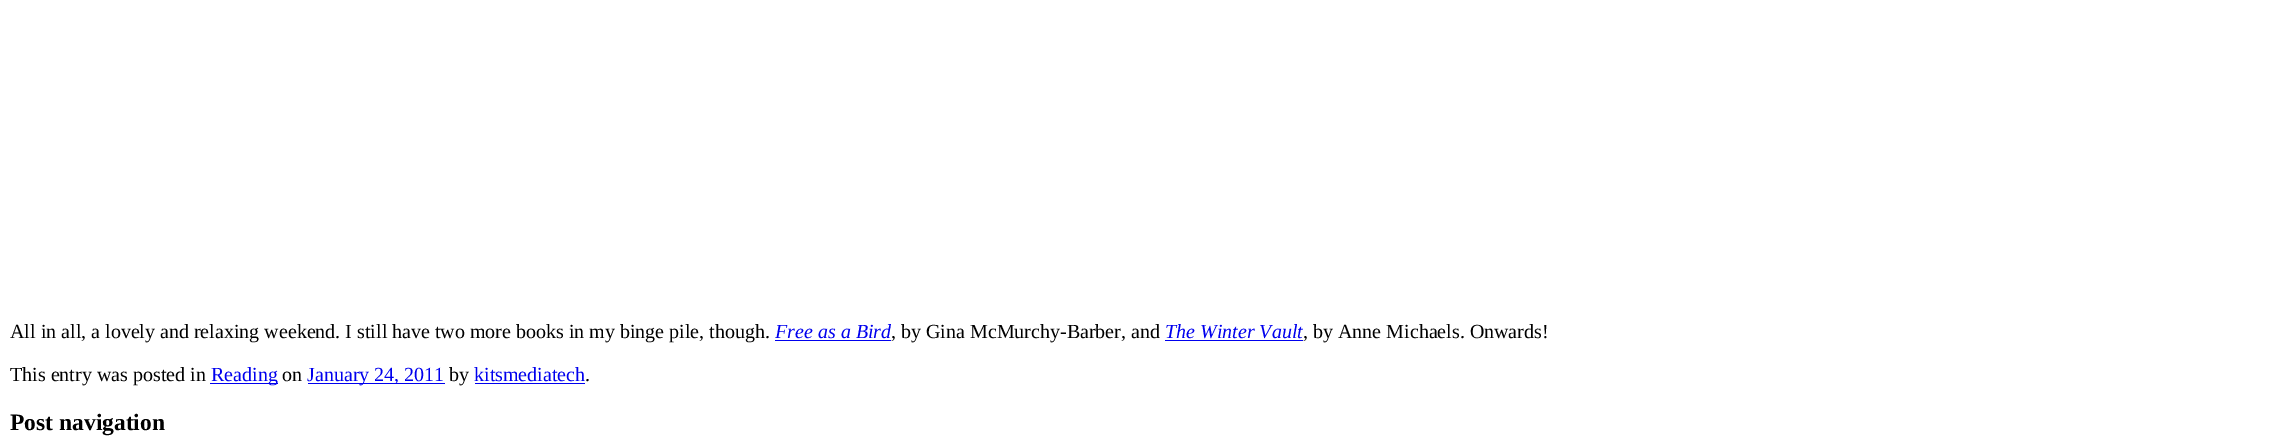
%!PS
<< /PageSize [2284 436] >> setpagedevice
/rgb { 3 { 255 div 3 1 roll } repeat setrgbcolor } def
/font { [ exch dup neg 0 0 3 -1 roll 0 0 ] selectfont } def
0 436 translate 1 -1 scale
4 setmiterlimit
255 255 255 rgb
0 0 2284 436 rectfill
[
  [775 340 116 1 0 0 238]
  [1165 340 138 1 0 0 238]
  [210 383 68 1 0 0 238]
  [308 383 137 1 0 0 238]
  [475 383 110 1 0 0 238]
] { aload pop rgb rectfill } forall
/LiberationSerif-Regular 20 font
0 0 0 rgb
10 338 moveto (All in all, a lovely and relaxing weekend. I still have two more books in my binge pile, though.) show
/LiberationSerif-Italic 20 font
0 0 238 rgb
775 338 moveto (Free as a Bird) show
/LiberationSerif-Regular 20 font
0 0 0 rgb
891 338 moveto (, by Gina McMurchy-Barber, and) show
/LiberationSerif-Italic 20 font
0 0 238 rgb
1165 338 moveto (The Winter Vault) show
/LiberationSerif-Regular 20 font
0 0 0 rgb
1303 338 moveto (, by Anne Michaels. Onwards!) show
10 381 moveto (This entry was posted in) show
0 0 238 rgb
211 381 moveto (Reading) show
0 0 0 rgb
282 381 moveto (on) show
0 0 238 rgb
307 381 moveto (January 24, 2011) show
0 0 0 rgb
449 381 moveto (by) show
0 0 238 rgb
474 381 moveto (kitsmediatech) show
0 0 0 rgb
585 381 moveto (.) show
/LiberationSerif-Bold 23.5 font
10 430 moveto (Post navigation) show
showpage
